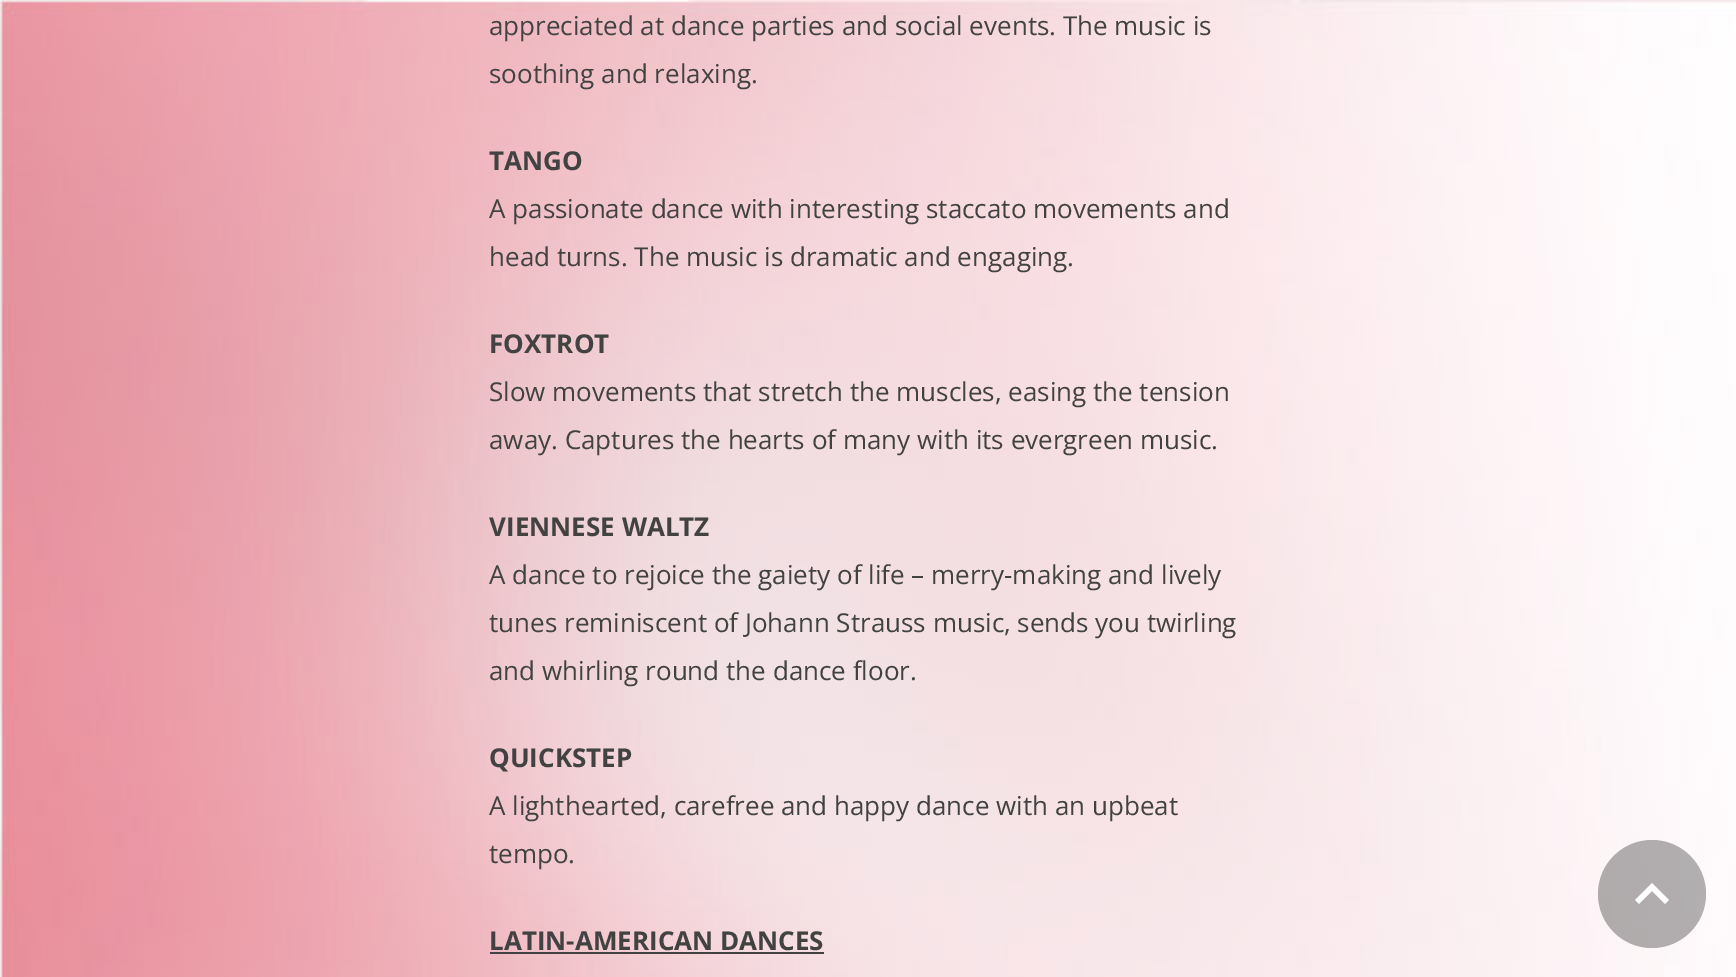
%!PS
<< /PageSize [1736 977] /PageUsesTransparency true >> setpagedevice
/rgb { 3 { 255 div 3 1 roll } repeat setrgbcolor } def
/font { [ exch dup neg 0 0 3 -1 roll 0 0 ] selectfont } def
/alpha { dup .setfillconstantalpha .setstrokeconstantalpha } def
/circle { newpath 0 360 arc closepath } def
/picture { 5 dict begin { /h /w /y /x /name } { exch def } forall
  gsave x y translate w h scale
  w h 8 [w 0 0 h 0 0] name (r) file false 3 colorimage grestore end } def
0 .pushpdf14devicefilter
0 977 translate 1 -1 scale
4 setmiterlimit
255 255 255 rgb
0 0 1736 977 rectfill
(img/1.rgb) 0 0 1736 977 picture
66 66 66 rgb
490 952 334 2 rectfill
0.3 alpha
0 0 0 rgb
1652 894 54 circle fill
1 alpha
255 255 255 rgb
1652 883 moveto 1635 900 lineto 1639 904 lineto 1652 891 lineto 1665 904 lineto 1669 900 lineto closepath fill
/OpenSans-Regular 26 font
66 66 66 rgb
489 35 moveto (appreciated at dance parties and social events. The music is) show
489 83 moveto (soothing and relaxing.) show
/OpenSans-Bold 26 font
489 170 moveto (TANGO) show
/OpenSans-Regular 26 font
489 218 moveto (A passionate dance with interesting staccato movements and) show
489 266 moveto (head turns. The music is dramatic and engaging.) show
/OpenSans-Bold 26 font
489 353 moveto (FOXTROT) show
/OpenSans-Regular 26 font
489 401 moveto (Slow movements that stretch the muscles, easing the tension) show
489 449 moveto (away. Captures the hearts of many with its evergreen music.) show
/OpenSans-Bold 26 font
489 536 moveto (VIENNESE WALTZ) show
/OpenSans-Regular 26 font
[
  [(A dance to rejoice the gaiety of life – merry-making and lively) 489 584]
  [(tunes reminiscent of Johann Strauss music, sends you twirling) 489 632]
  [(and whirling round the dance floor.) 489 680]
] { aload pop moveto show } forall
/OpenSans-Bold 26 font
489 767 moveto (QUICKSTEP) show
/OpenSans-Regular 26 font
489 815 moveto (A lighthearted, carefree and happy dance with an upbeat) show
489 863 moveto (tempo.) show
/OpenSans-Bold 26 font
489 950 moveto (LATIN-AMERICAN DANCES) show
.poppdf14devicefilter showpage
